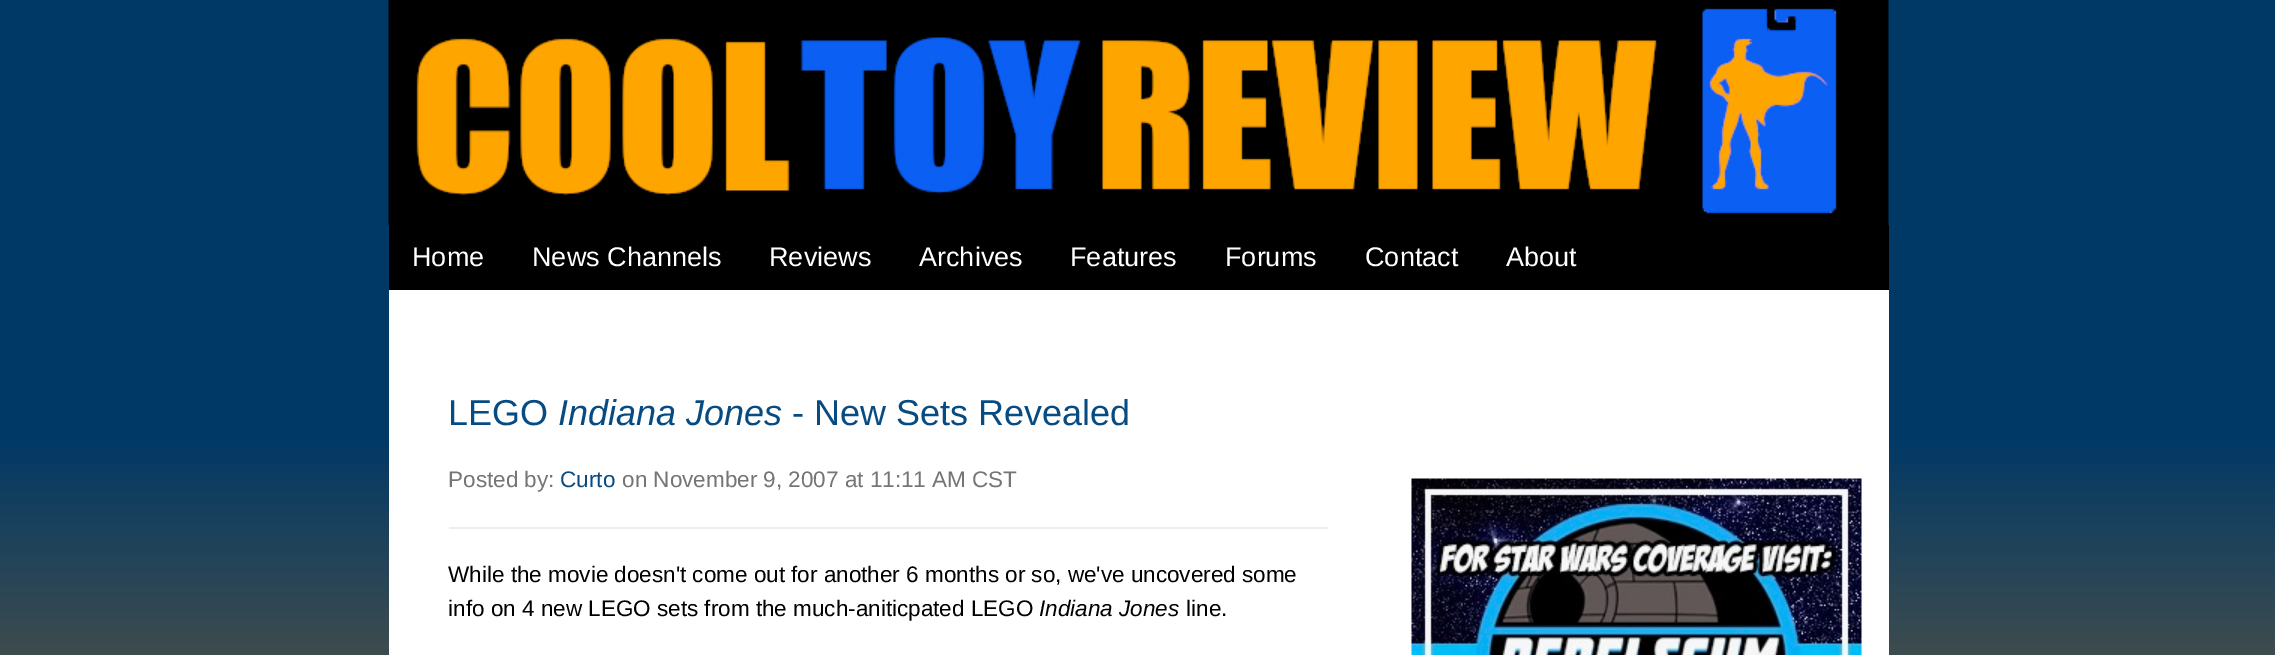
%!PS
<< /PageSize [2275 655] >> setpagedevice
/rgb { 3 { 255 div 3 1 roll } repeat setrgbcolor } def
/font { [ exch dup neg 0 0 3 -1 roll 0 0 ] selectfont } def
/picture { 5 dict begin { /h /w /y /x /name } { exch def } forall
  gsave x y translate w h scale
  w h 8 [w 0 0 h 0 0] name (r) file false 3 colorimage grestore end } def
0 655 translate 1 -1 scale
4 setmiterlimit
255 255 255 rgb
0 0 2275 655 rectfill
gsave 0 0 moveto 2275 0 lineto 2275 655 lineto 0 655 lineto closepath clip newpath
<< /ShadingType 2 /ColorSpace /DeviceRGB /Coords [1138 0 1138 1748] /Extend [true true] /Function << /FunctionType 3 /Domain [0 1] /Functions [<< /FunctionType 2 /Domain [0 1] /C0 [0.004 0.224 0.4] /C1 [0.004 0.224 0.4] /N 1 >> << /FunctionType 2 /Domain [0 1] /C0 [0.004 0.224 0.4] /C1 [0.969 0.514 0.027] /N 1 >> << /FunctionType 2 /Domain [0 1] /C0 [0.969 0.514 0.027] /C1 [0.969 0.514 0.027] /N 1 >>] /Bounds [0.25 0.75] /Encode [0 1 0 1 0 1] >> >> shfill grestore
(img/1.rgb) 388 0 1501 225 picture
[
  [389 225 1500 65 0 0 0]
  [389 290 1500 365 255 255 255]
  [449 527 879 2 238 238 238]
] { aload pop rgb rectfill } forall
(img/2.rgb) 1411 478 451 177 picture
/LiberationSans-Regular 27 font
255 255 255 rgb
[
  [(Home) 412 266]
  [(News Channels) 532 266]
  [(Reviews) 769 266]
  [(Archives) 919 266]
  [(Features) 1070 266]
  [(Forums) 1225 266]
  [(Contact) 1365 266]
  [(About) 1506 266]
] { aload pop moveto show } forall
/LiberationSans-Regular 36 font
7 75 131 rgb
448 425 moveto (LEGO) show
/LiberationSans-Italic 36 font
558 425 moveto (Indiana Jones) show
/LiberationSans-Regular 36 font
792 425 moveto (- New Sets Revealed) show
/LiberationSans-Regular 22.5 font
117 117 117 rgb
448 487 moveto (Posted by:) show
7 75 131 rgb
560 487 moveto (Curto) show
117 117 117 rgb
622 487 moveto (on November 9, 2007 at 11:11 AM CST) show
0 0 0 rgb
448 582 moveto (While the movie doesn't come out for another 6 months or so, we've uncovered some) show
448 616 moveto (info on 4 new LEGO sets from the much-aniticpated LEGO) show
/LiberationSans-Italic 22.5 font
1039 616 moveto (Indiana Jones) show
/LiberationSans-Regular 22.5 font
1186 616 moveto (line.) show
showpage
